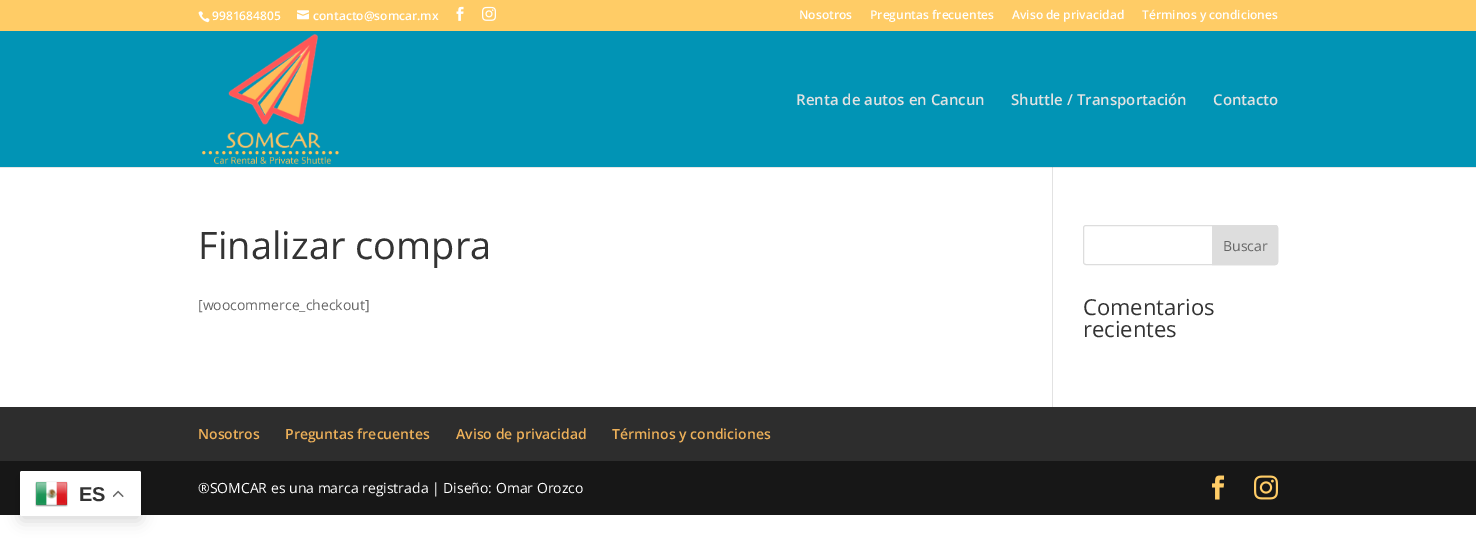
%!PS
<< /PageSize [1476 543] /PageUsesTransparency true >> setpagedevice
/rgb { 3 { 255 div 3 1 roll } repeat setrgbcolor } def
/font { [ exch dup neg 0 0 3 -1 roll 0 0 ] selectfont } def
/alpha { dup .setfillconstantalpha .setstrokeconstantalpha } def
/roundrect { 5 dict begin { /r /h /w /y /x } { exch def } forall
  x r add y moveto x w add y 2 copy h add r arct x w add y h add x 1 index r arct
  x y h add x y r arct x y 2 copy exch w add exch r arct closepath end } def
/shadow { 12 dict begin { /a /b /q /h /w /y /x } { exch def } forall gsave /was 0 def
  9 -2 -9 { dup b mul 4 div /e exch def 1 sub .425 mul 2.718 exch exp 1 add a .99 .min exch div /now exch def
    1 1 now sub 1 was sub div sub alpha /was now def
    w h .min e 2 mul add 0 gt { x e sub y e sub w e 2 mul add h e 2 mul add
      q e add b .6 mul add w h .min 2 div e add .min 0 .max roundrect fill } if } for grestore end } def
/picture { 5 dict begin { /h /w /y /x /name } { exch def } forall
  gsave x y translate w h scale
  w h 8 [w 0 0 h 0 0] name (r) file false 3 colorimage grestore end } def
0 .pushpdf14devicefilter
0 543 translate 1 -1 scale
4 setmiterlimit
255 255 255 rgb
0 0 1476 543 rectfill
[
  [0 167 1476 1 230 230 230]
  [0 407 1476 54 45 45 45]
  [0 461 1476 54 23 23 23]
] { aload pop rgb rectfill } forall
0 0 0 rgb
20 476 121 45 2 7.5 0.15 shadow
255 255 255 rgb
20 471 121 45 2 roundrect fill
(img/1.rgb) 35 481 33 26 picture
(img/2.rgb) 113 490 11 8 picture
255 204 102 rgb
0 0 1476 31 rectfill
(img/3.rgb) 198 11 12 12 picture
(img/4.rgb) 297 10 12 10 picture
(img/5.rgb) 456 6 8 15 picture
(img/6.rgb) 482 6 14 15 picture
1 148 181 rgb
0 31 1476 136 rectfill
(img/7.rgb) 202 34 137 130 picture
226 226 226 rgb
1052 167 1 240 rectfill
203 203 203 rgb
1052 167 1 1 rectfill
221 221 221 rgb
1083.5 225.5 194 39 2.5 roundrect stroke
1212.5 225.5 moveto 1275 225.5 lineto 1276.5 225.5 1277.5 226.5 1277.5 228 curveto 1277.5 262 lineto 1277.5 263.5 1276.5 264.5 1275 264.5 curveto 1212.5 264.5 lineto closepath gsave fill grestore
stroke
(img/8.rgb) 1212 475 13 25 picture
(img/9.rgb) 1254 475 24 25 picture
/LiberationSans-Bold 20 font
51 51 51 rgb
79 501 moveto (ES) show
/OpenSans-SemiBold 12 font
255 255 255 rgb
[
  [(9981684805) 212 20]
  [(contacto@somcar.mx) 313 20]
  [(Nosotros) 799 19]
  [(Preguntas frecuentes) 870 19]
  [(Aviso de privacidad) 1012 19]
  [(Términos y condiciones) 1142 19]
] { aload pop moveto show } forall
/OpenSans-SemiBold 15 font
226 226 226 rgb
[
  [(Renta de autos en Cancun) 796 105]
  [(Shuttle / Transportación) 1011 105]
  [(Contacto) 1213 105]
] { aload pop moveto show } forall
/OpenSans-Regular 38 font
51 51 51 rgb
198 259 moveto (Finalizar compra) show
/OpenSans-Regular 14 font
102 102 102 rgb
198 310 moveto ([woocommerce_checkout]) show
1223 251 moveto (Buscar) show
/OpenSans-Regular 22 font
51 51 51 rgb
1083 315 moveto (Comentarios) show
1083 337 moveto (recientes) show
/OpenSans-SemiBold 14 font
237 176 89 rgb
[
  [(Nosotros) 198 439]
  [(Preguntas frecuentes) 285 439]
  [(Aviso de privacidad) 456 439]
  [(Términos y condiciones) 612 439]
] { aload pop moveto show } forall
/OpenSans-Regular 14 font
255 255 255 rgb
198 493 moveto (®SOMCAR es una marca registrada | Diseño: Omar Orozco) show
.poppdf14devicefilter showpage
